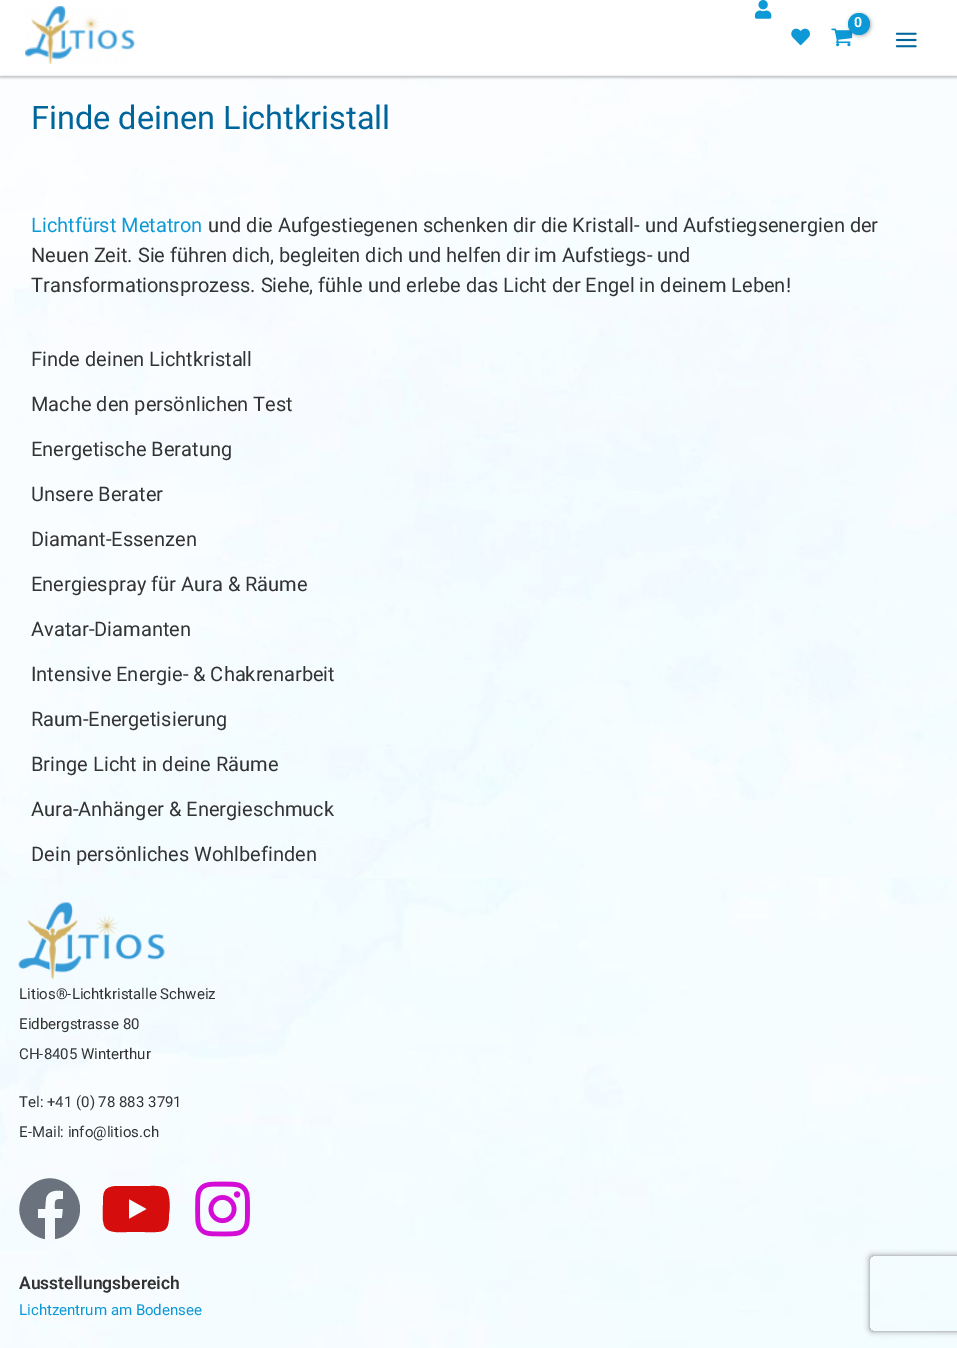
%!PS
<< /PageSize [957 1348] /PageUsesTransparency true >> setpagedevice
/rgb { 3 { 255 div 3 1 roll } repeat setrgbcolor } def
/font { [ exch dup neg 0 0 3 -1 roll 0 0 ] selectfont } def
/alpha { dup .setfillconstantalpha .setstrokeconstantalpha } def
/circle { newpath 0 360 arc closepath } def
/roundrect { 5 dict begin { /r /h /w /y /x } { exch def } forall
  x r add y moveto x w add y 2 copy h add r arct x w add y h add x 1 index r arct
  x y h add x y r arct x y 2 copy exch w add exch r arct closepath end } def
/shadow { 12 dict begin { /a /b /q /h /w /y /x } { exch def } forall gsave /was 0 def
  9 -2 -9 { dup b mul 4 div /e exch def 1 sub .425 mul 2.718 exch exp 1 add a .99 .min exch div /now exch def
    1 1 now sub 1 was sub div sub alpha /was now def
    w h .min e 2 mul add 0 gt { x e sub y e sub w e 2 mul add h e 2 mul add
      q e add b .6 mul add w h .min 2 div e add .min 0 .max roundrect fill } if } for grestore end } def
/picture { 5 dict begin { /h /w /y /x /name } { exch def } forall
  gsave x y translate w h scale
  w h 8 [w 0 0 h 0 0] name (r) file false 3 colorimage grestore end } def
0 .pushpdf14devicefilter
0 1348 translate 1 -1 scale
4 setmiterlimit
255 255 255 rgb
0 0 957 1348 rectfill
(img/1.rgb) 0 76 957 1272 picture
(img/7.rgb) 0 76 957 802 picture
0 0 0 rgb
0 1 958 77 0 1 0.2 shadow
255 255 255 rgb
0 0 957 75 rectfill
240 240 240 rgb
0 75 957 1 rectfill
(img/2.rgb) 25 6 111 58 picture
(img/3.rgb) 754 0 18 19 picture
(img/4.rgb) 831 28 22 19 picture
0 0 0 rgb
849 14 22 22 11 2 0.3 shadow
13 152 214 rgb
859 24 11 circle fill
(img/5.rgb) 791 28 19 18 picture
(img/6.rgb) 895 32 22 16 picture
(img/8.rgb) 18 902 147 77 picture
105 114 125 rgb
80 1209 moveto 80 1224 69 1237 55 1239 curveto 55 1218 lineto 62 1218 lineto 63 1209 lineto 55 1209 lineto 55 1200 54 1199 63 1199 curveto 63 1191 lineto 57 1190 48 1190 46 1198 curveto 45 1209 lineto 38 1209 lineto 38 1218 lineto 45 1218 lineto 45 1239 lineto 38 1238 32 1234 27 1229 curveto 4 1202 38 1164 67 1184 curveto 75 1190 80 1199 80 1209 curveto closepath fill
214 13 13 rgb
168 1193 moveto 170 1200 170 1207 169 1214 curveto 169 1234 163 1232 144 1232 curveto 127 1232 lineto 121 1232 107 1234 104 1225 curveto 102 1219 103 1211 103 1204 curveto 103 1193 103 1187 116 1186 curveto 131 1186 lineto 150 1186 lineto 156 1186 166 1185 168 1193 curveto closepath 129 1219 moveto 147 1209 lineto 129 1199 lineto closepath fill
(img/9.rgb) 195 1181 55 56 picture
gsave
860 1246 moveto 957 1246 lineto 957 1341 lineto 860 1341 lineto closepath 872.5 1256 moveto 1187.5 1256 lineto 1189 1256 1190 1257 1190 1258.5 curveto 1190 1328.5 lineto 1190 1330 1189 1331 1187.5 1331 curveto 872.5 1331 lineto 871 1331 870 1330 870 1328.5 curveto 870 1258.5 lineto 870 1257 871 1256 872.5 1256 curveto closepath eoclip newpath
128 128 128 rgb
870 1256 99 75 2.5 3 1 shadow
grestore
/Roboto-Bold 14 font
255 255 255 rgb
854 27 moveto -1 0 (0) ashow
/Roboto-Regular 32.5 font
0 101 155 rgb
31 129 moveto (Finde deinen Lichtkristall) show
/Roboto-Regular 20 font
13 152 214 rgb
31 232 moveto (Lichtfürst Metatron) show
51 51 51 rgb
[
  [(und die Aufgestiegenen schenken dir die Kristall- und Aufstiegsenergien der) 208 232]
  [(Neuen Zeit. Sie führen dich, begleiten dich und helfen dir im Aufstiegs- und) 31 262]
  [(Transformationsprozess. Siehe, fühle und erlebe das Licht der Engel in deinem Leben!) 31 292]
  [(Finde deinen Lichtkristall) 31 366]
  [(Mache den persönlichen Test) 31 411]
  [(Energetische Beratung) 31 456]
  [(Unsere Berater) 31 501]
  [(Diamant-Essenzen) 31 546]
  [(Energiespray für Aura & Räume) 31 591]
  [(Avatar-Diamanten) 31 636]
  [(Intensive Energie- & Chakrenarbeit) 31 681]
  [(Raum-Energetisierung) 31 726]
  [(Bringe Licht in deine Räume) 31 771]
  [(Aura-Anhänger & Energieschmuck) 31 816]
  [(Dein persönliches Wohlbefinden) 31 861]
] { aload pop moveto show } forall
/Roboto-Regular 15 font
[
  [(Litios®-Lichtkristalle Schweiz) 19 999]
  [(Eidbergstrasse 80) 19 1029]
  [(CH-8405 Winterthur) 19 1059]
  [(Tel: +41 \(0\) 78 883 3791) 19 1107]
  [(E-Mail: info@litios.ch) 19 1137]
] { aload pop moveto show } forall
/Roboto-SemiBold 17.5 font
19 1289 moveto (Ausstellungsbereich) show
/Roboto-Regular 15 font
13 152 214 rgb
19 1315 moveto (Lichtzentrum am Bodensee) show
.poppdf14devicefilter showpage
